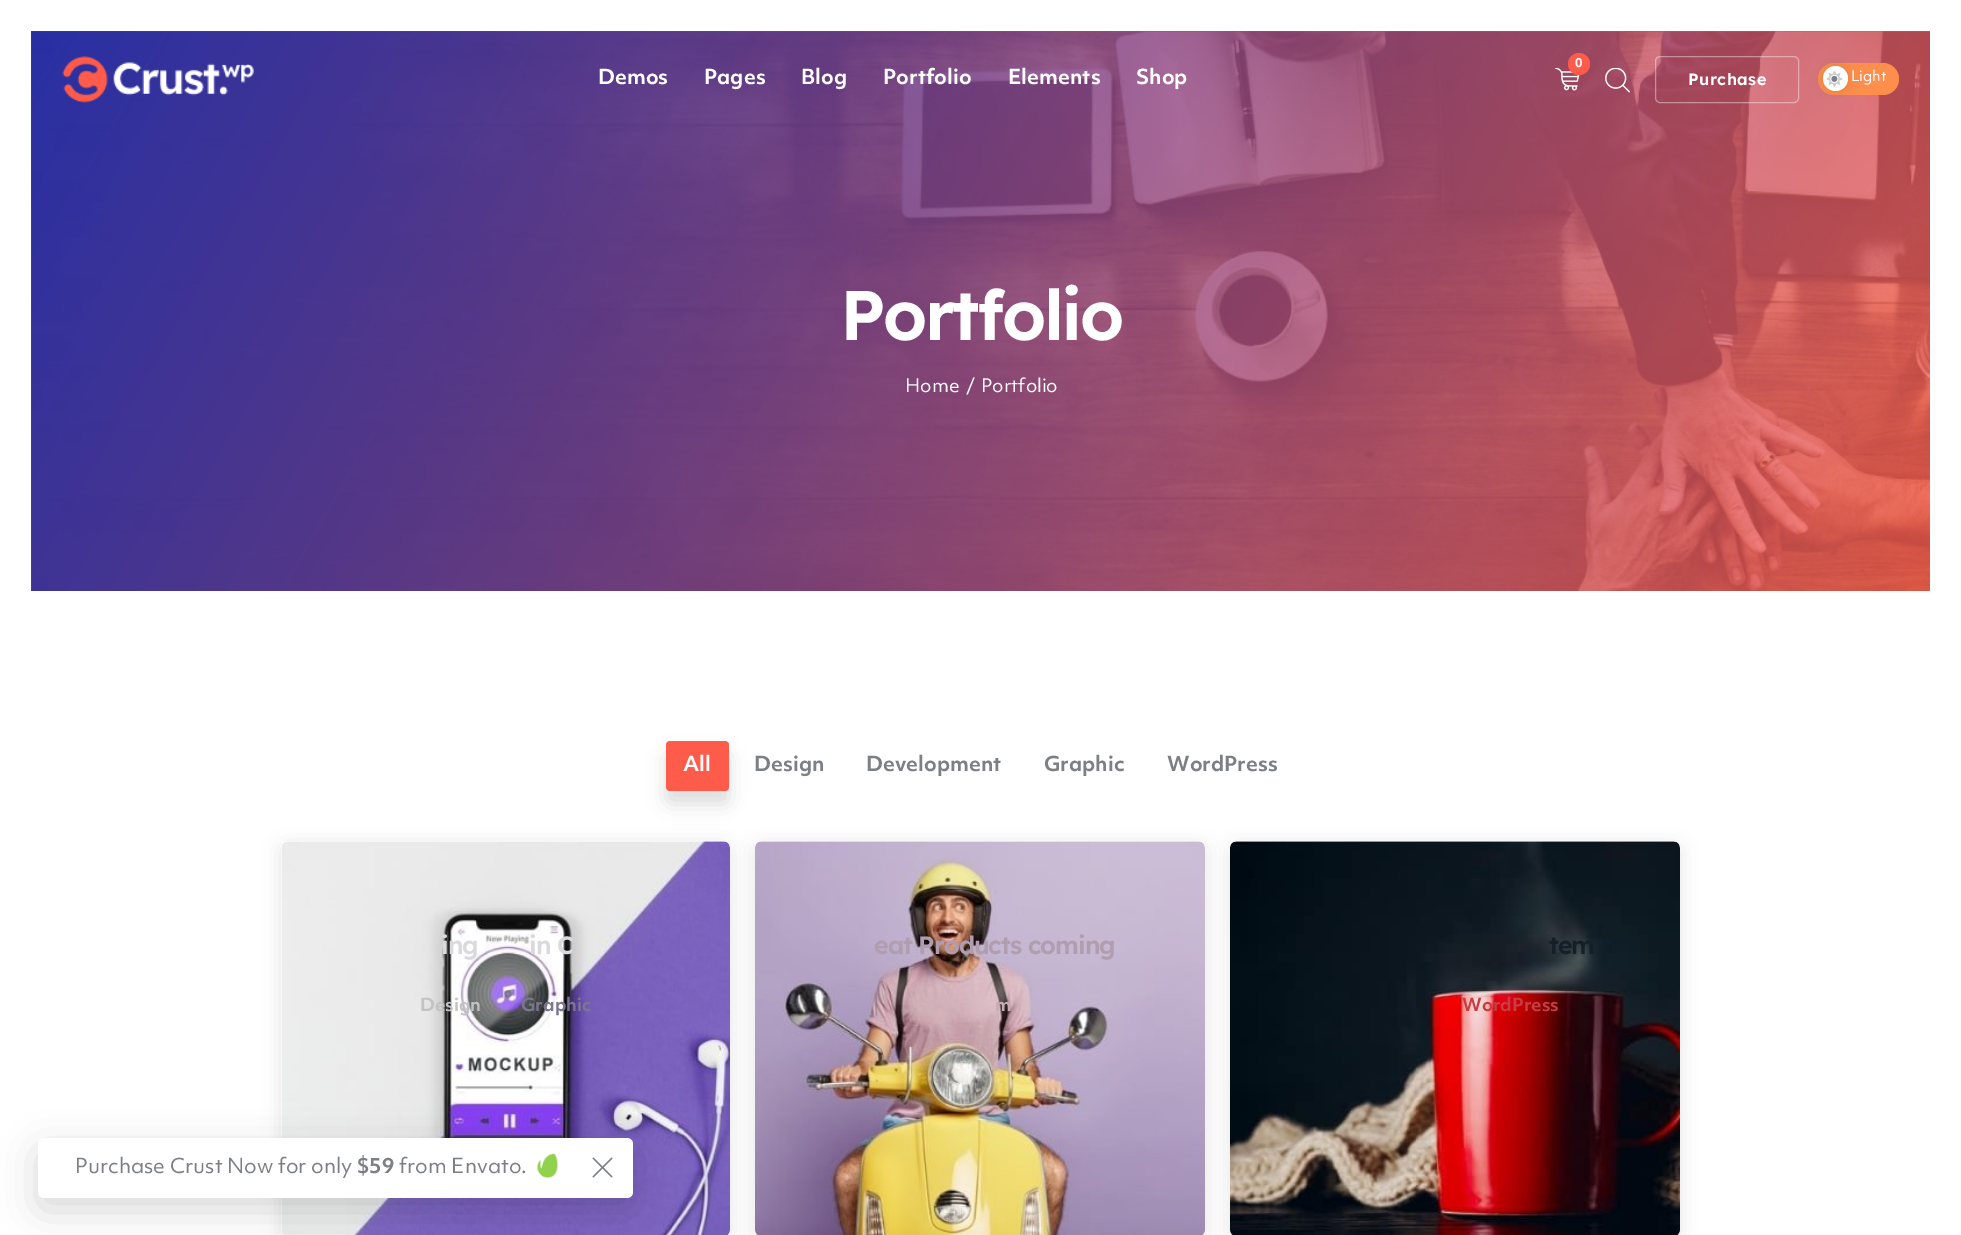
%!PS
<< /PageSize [1961 1235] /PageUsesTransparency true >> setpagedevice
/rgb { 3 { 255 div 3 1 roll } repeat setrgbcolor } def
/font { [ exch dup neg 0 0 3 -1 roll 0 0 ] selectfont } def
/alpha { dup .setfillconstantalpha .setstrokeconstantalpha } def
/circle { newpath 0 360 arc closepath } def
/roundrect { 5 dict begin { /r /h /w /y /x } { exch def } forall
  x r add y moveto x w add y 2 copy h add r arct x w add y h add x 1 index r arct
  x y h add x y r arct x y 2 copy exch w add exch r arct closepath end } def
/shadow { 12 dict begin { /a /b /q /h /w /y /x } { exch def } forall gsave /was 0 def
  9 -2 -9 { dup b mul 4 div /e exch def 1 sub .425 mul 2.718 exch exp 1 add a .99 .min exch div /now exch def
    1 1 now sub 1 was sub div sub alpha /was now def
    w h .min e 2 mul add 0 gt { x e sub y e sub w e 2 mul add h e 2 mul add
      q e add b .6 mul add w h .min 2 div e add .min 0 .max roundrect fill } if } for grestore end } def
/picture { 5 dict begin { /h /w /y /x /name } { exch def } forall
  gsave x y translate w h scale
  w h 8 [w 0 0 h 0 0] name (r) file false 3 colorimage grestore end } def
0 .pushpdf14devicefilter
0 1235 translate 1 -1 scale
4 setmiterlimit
255 255 255 rgb
0 0 1961 1235 rectfill
gsave 31 31 moveto 1930 31 lineto 1930 591 lineto 31 591 lineto closepath clip newpath
<< /ShadingType 2 /ColorSpace /DeviceRGB /Coords [147 -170 1814 792] /Extend [true true] /Function << /FunctionType 2 /Domain [0 1] /C0 [0.184 0.224 0.827] /C1 [1 0.357 0.29] /N 1 >> >> shfill grestore
(img/6.rgb) 31 31 1899 560 picture
(img/1.rgb) 62 56 192 47 picture
(img/2.rgb) 1555 68 25 23 picture
255 91 74 rgb
1579 64 11 circle fill
(img/3.rgb) 1605 68 25 25 picture
0.4 alpha
255 255 255 rgb
1655.5 56.5 143 46 4.5 roundrect stroke
1 alpha
253 142 76 rgb
1818 63 81 32 16 roundrect fill
0 0 0 rgb
1823 66 25 25 12.5 6 0.11 shadow
255 255 255 rgb
1835.5 78.5 12.5 circle fill
(img/5.rgb) 1831 75 7 7 picture
(img/4.rgb) 1826 70 17 17 picture
0 0 0 rgb
666 754 63 50 4 9.5 0.14 shadow
255 91 74 rgb
666 741 63 50 4 roundrect fill
0 0 0 rgb
281 845 449 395 6 9.5 0.1 shadow
255 255 255 rgb
281 841 449 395 6 roundrect fill
(img/7.rgb) 281 841 449 394 picture
0 0 0 rgb
755 845 450 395 6 9.5 0.1 shadow
255 255 255 rgb
755 841 450 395 6 roundrect fill
(img/8.rgb) 755 841 450 394 picture
0 0 0 rgb
1230 845 450 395 6 9.5 0.1 shadow
255 255 255 rgb
1230 841 450 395 6 roundrect fill
(img/9.rgb) 1230 841 450 394 picture
0 0 0 rgb
38 1150 595 60 6 19 0.15 shadow
255 255 255 rgb
38 1138 595 60 6 roundrect fill
(img/10.rgb) 537 1153 21 25 picture
(img/11.rgb) 592 1157 21 21 picture
/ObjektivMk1-Bold 12 font
1575 67 moveto (0) show
/ObjektivMk1-Bold 20 font
[
  [(Demos) 598 84]
  [(Pages) 704 84]
  [(Blog) 801 84]
  [(Portfolio) 883 84]
  [(Elements) 1008 84]
  [(Shop) 1136 84]
] { aload pop moveto show } forall
/Lexend-SemiBold 16.25 font
1688 85 moveto 0.5 0 (Purchase) ashow
/ObjektivMk1-Regular 14 font
1851 81 moveto (Light) show
/Lexend-SemiBold 70 font
840 340 moveto -2.75 0 (Portfolio) ashow
/ObjektivMk1-Regular 18 font
[
  [(Home) 905 392]
  [(/) 966 392]
  [(Portfolio) 981 392]
] { aload pop moveto show } forall
/ObjektivMk1-Bold 20 font
683 771 moveto (All) show
124 128 132 rgb
[
  [(Design) 754 771]
  [(Development) 866 771]
  [(Graphic) 1044 771]
  [(WordPress) 1167 771]
] { aload pop moveto show } forall
/Lexend-SemiBold 25 font
218 217 221 rgb
441 954 moveto -1 0 (ing) ashow
529 954 moveto -1 0 (in C) ashow
/ObjektivMk1-Bold 17.5 font
194 194 195 rgb
420 1011 moveto (Design) show
123 117 143 rgb
521 1011 moveto (Graphic) show
/Lexend-SemiBold 25 font
176 157 176 rgb
874 954 moveto -1 0 (eat Products coming) ashow
/ObjektivMk1-Bold 17.5 font
199 170 179 rgb
995 1011 moveto (m) show
/Lexend-SemiBold 25 font
21 31 39 rgb
1549 954 moveto -1 0 (tem) ashow
/ObjektivMk1-Bold 17.5 font
197 62 66 rgb
1462 1011 moveto (WordPress) show
/ObjektivMk1-Regular 20 font
124 128 132 rgb
75 1173 moveto (Purchase Crust Now for only) show
/ObjektivMk1-Bold 20 font
357 1173 moveto ($59) show
/ObjektivMk1-Regular 20 font
399 1173 moveto (from Envato.) show
.poppdf14devicefilter showpage
